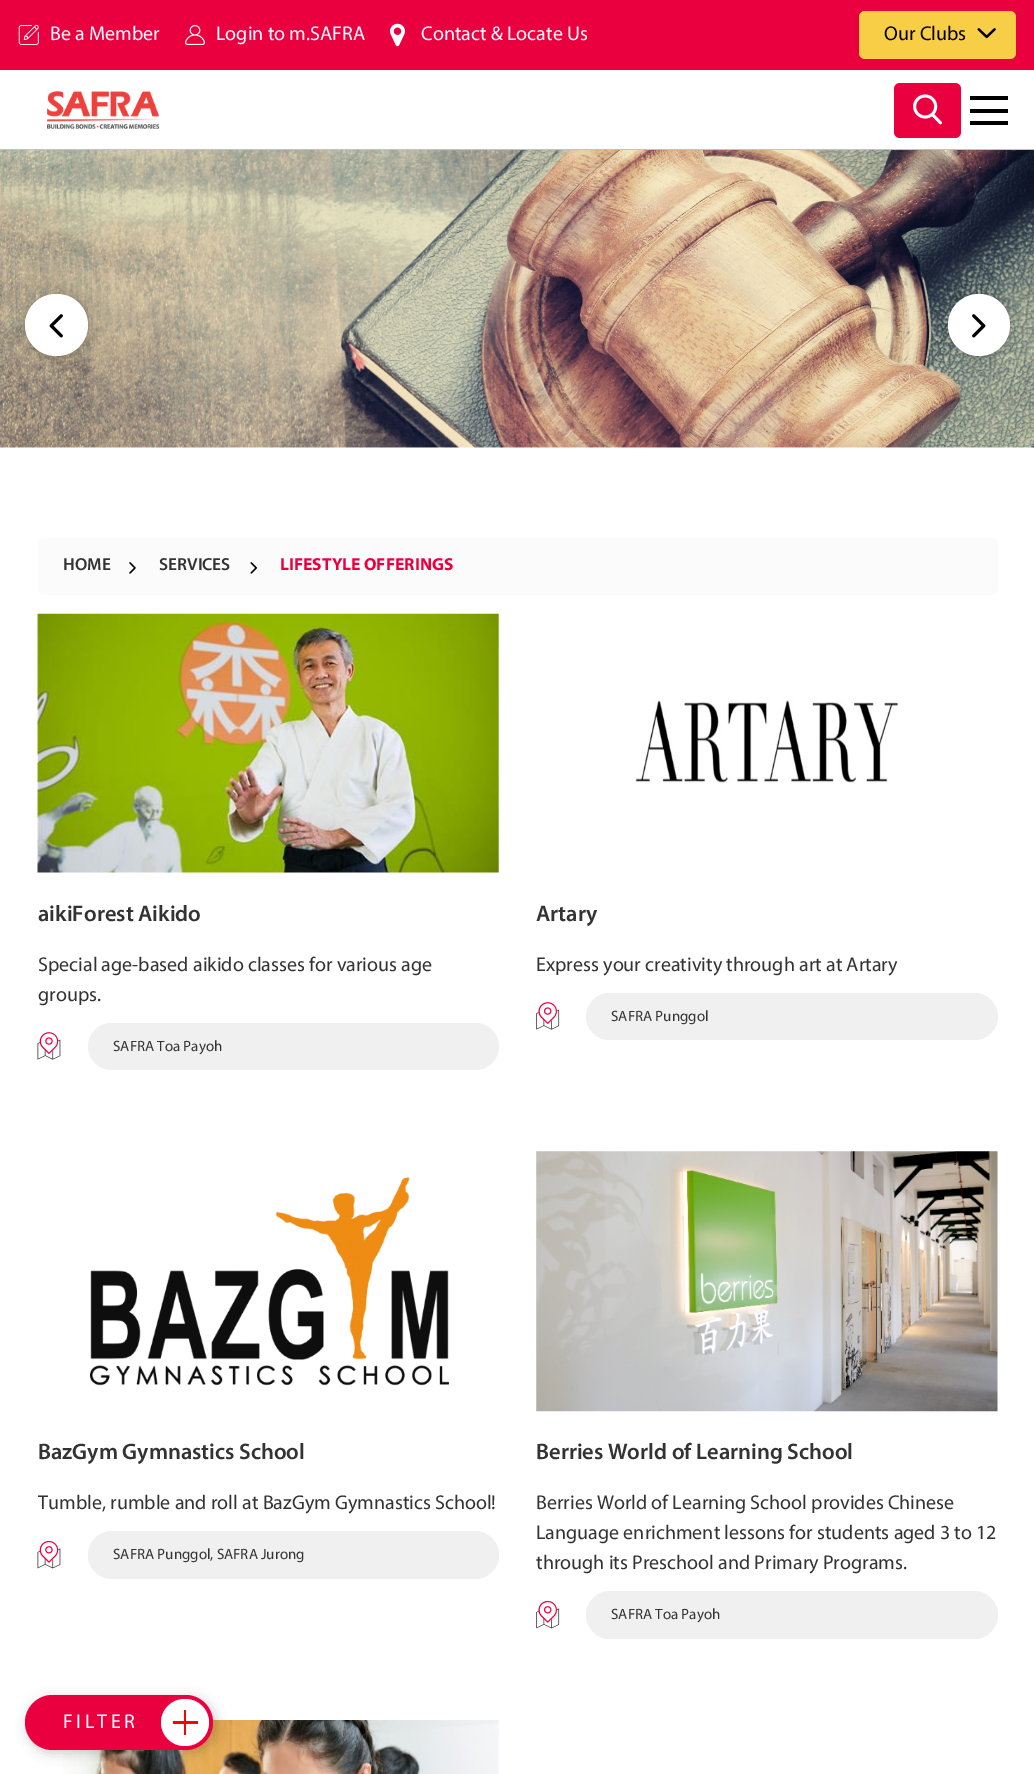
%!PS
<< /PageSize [1034 1774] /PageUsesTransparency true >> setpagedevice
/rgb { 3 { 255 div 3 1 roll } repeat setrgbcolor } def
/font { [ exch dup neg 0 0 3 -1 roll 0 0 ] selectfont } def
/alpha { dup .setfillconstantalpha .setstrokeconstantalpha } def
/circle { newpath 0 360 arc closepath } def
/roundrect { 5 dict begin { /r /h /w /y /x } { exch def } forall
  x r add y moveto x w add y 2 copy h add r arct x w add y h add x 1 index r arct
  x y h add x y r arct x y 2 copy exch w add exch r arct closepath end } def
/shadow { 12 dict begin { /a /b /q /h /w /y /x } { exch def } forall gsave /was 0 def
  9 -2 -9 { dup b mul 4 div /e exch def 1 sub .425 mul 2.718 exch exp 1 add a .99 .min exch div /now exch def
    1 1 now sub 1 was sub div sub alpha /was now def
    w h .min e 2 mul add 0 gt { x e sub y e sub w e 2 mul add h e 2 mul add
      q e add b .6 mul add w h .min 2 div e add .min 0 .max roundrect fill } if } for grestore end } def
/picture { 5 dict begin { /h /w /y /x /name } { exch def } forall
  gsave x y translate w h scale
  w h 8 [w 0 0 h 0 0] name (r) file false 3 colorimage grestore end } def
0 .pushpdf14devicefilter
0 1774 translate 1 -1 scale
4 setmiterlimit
255 255 255 rgb
0 0 1034 1774 rectfill
235 0 63 rgb
0 0 1034 70 rectfill
(img/1.rgb) 18 25 21 20 picture
(img/2.rgb) 185 25 20 20 picture
(img/3.rgb) 390 23 15 24 picture
248 206 70 rgb
859 11 157 48 6 roundrect fill
(img/4.rgb) 977 28 19 11 picture
(img/5.rgb) 47 91 113 38 picture
235 0 63 rgb
894 83 67 55 6 roundrect fill
(img/6.rgb) 913 94 29 31 picture
[
  [970 96 38 4 0 0 0]
  [970 109 38 4 0 0 0]
  [970 121 38 4 0 0 0]
  [0 149 1034 1 194 194 194]
] { aload pop rgb rectfill } forall
(img/7.rgb) 0 150 1034 298 picture
0 0 0 rgb
25 294 63 62 31 6 0.2 shadow
255 255 255 rgb
25 294 63 62 31 roundrect fill
(img/8.rgb) 49 314 14 24 picture
0 0 0 rgb
948 294 62 62 31 6 0.2 shadow
255 255 255 rgb
979 325 31 circle fill
(img/9.rgb) 972 314 14 24 picture
251 251 251 rgb
38 538 960 57 6 roundrect fill
(img/10.rgb) 129 562 7 12 picture
(img/11.rgb) 250 562 7 12 picture
(img/12.rgb) 37 613 462 260 picture
(img/14.rgb) 37 1039 24 21 picture
(img/13.rgb) 39 1032 20 22 picture
240 240 240 rgb
88 1023 411 47 23.5 roundrect fill
(img/15.rgb) 635 700 263 83 picture
(img/17.rgb) 536 1009 24 21 picture
(img/16.rgb) 538 1002 19 22 picture
586 993 412 47 23.5 roundrect fill
(img/18.rgb) 89 1177 360 209 picture
(img/20.rgb) 37 1548 24 21 picture
(img/19.rgb) 39 1540 20 23 picture
88 1531 411 48 24 roundrect fill
(img/21.rgb) 536 1151 462 261 picture
(img/23.rgb) 536 1608 24 21 picture
(img/22.rgb) 538 1600 19 23 picture
586 1591 412 48 24 roundrect fill
(img/24.rgb) 63 1720 436 54 picture
0 0 0 rgb
28 1698 187 55 27.5 6 0.2 shadow
235 0 63 rgb
25 1695 188 55 27.5 roundrect fill
255 255 255 rgb
161 1699 48 47 23.5 roundrect fill
255 0 0 rgb
173 1721 25 3 rectfill
184 1710 2 25 rectfill
/Myriad-Regular 20 font
255 255 255 rgb
[
  [(Be a Member) 50 40]
  [(Login to m.SAFRA) 216 40]
  [(Contact & Locate Us) 421 40]
] { aload pop moveto show } forall
0 0 0 rgb
884 40 moveto (Our Clubs) show
/Myriad-SemiBold 17.5 font
51 51 51 rgb
63 570 moveto (HOME) show
159 570 moveto (SERVICES) show
/Myriad-Bold 17.5 font
235 0 63 rgb
280 570 moveto (LIFESTYLE OFFERINGS) show
/Myriad-SemiBold 22.5 font
51 51 51 rgb
38 921 moveto (aikiForest Aikido) show
/Myriad-Regular 20 font
38 971 moveto (Special age-based aikido classes for various age) show
38 1001 moveto (groups.) show
/Myriad-Regular 15 font
113 1051 moveto (SAFRA Toa Payoh) show
/Myriad-SemiBold 22.5 font
536 921 moveto (Artary) show
/Myriad-Regular 20 font
536 971 moveto (Express your creativity through art at Artary) show
/Myriad-Regular 15 font
611 1021 moveto (SAFRA Punggol) show
/Myriad-SemiBold 22.5 font
38 1459 moveto (BazGym Gymnastics School) show
/Myriad-Regular 20 font
38 1509 moveto (Tumble, rumble and roll at BazGym Gymnastics School!) show
/Myriad-Regular 15 font
113 1559 moveto (SAFRA Punggol, SAFRA Jurong) show
/Myriad-SemiBold 22.5 font
536 1459 moveto (Berries World of Learning School) show
/Myriad-Regular 20 font
[
  [(Berries World of Learning School provides Chinese) 536 1509]
  [(Language enrichment lessons for students aged 3 to 12) 536 1539]
  [(through its Preschool and Primary Programs.) 536 1569]
] { aload pop moveto show } forall
/Myriad-Regular 15 font
611 1619 moveto (SAFRA Toa Payoh) show
/Myriad-Regular 20 font
255 255 255 rgb
63 1728 moveto 3.5 0 (FILTER) ashow
.poppdf14devicefilter showpage
